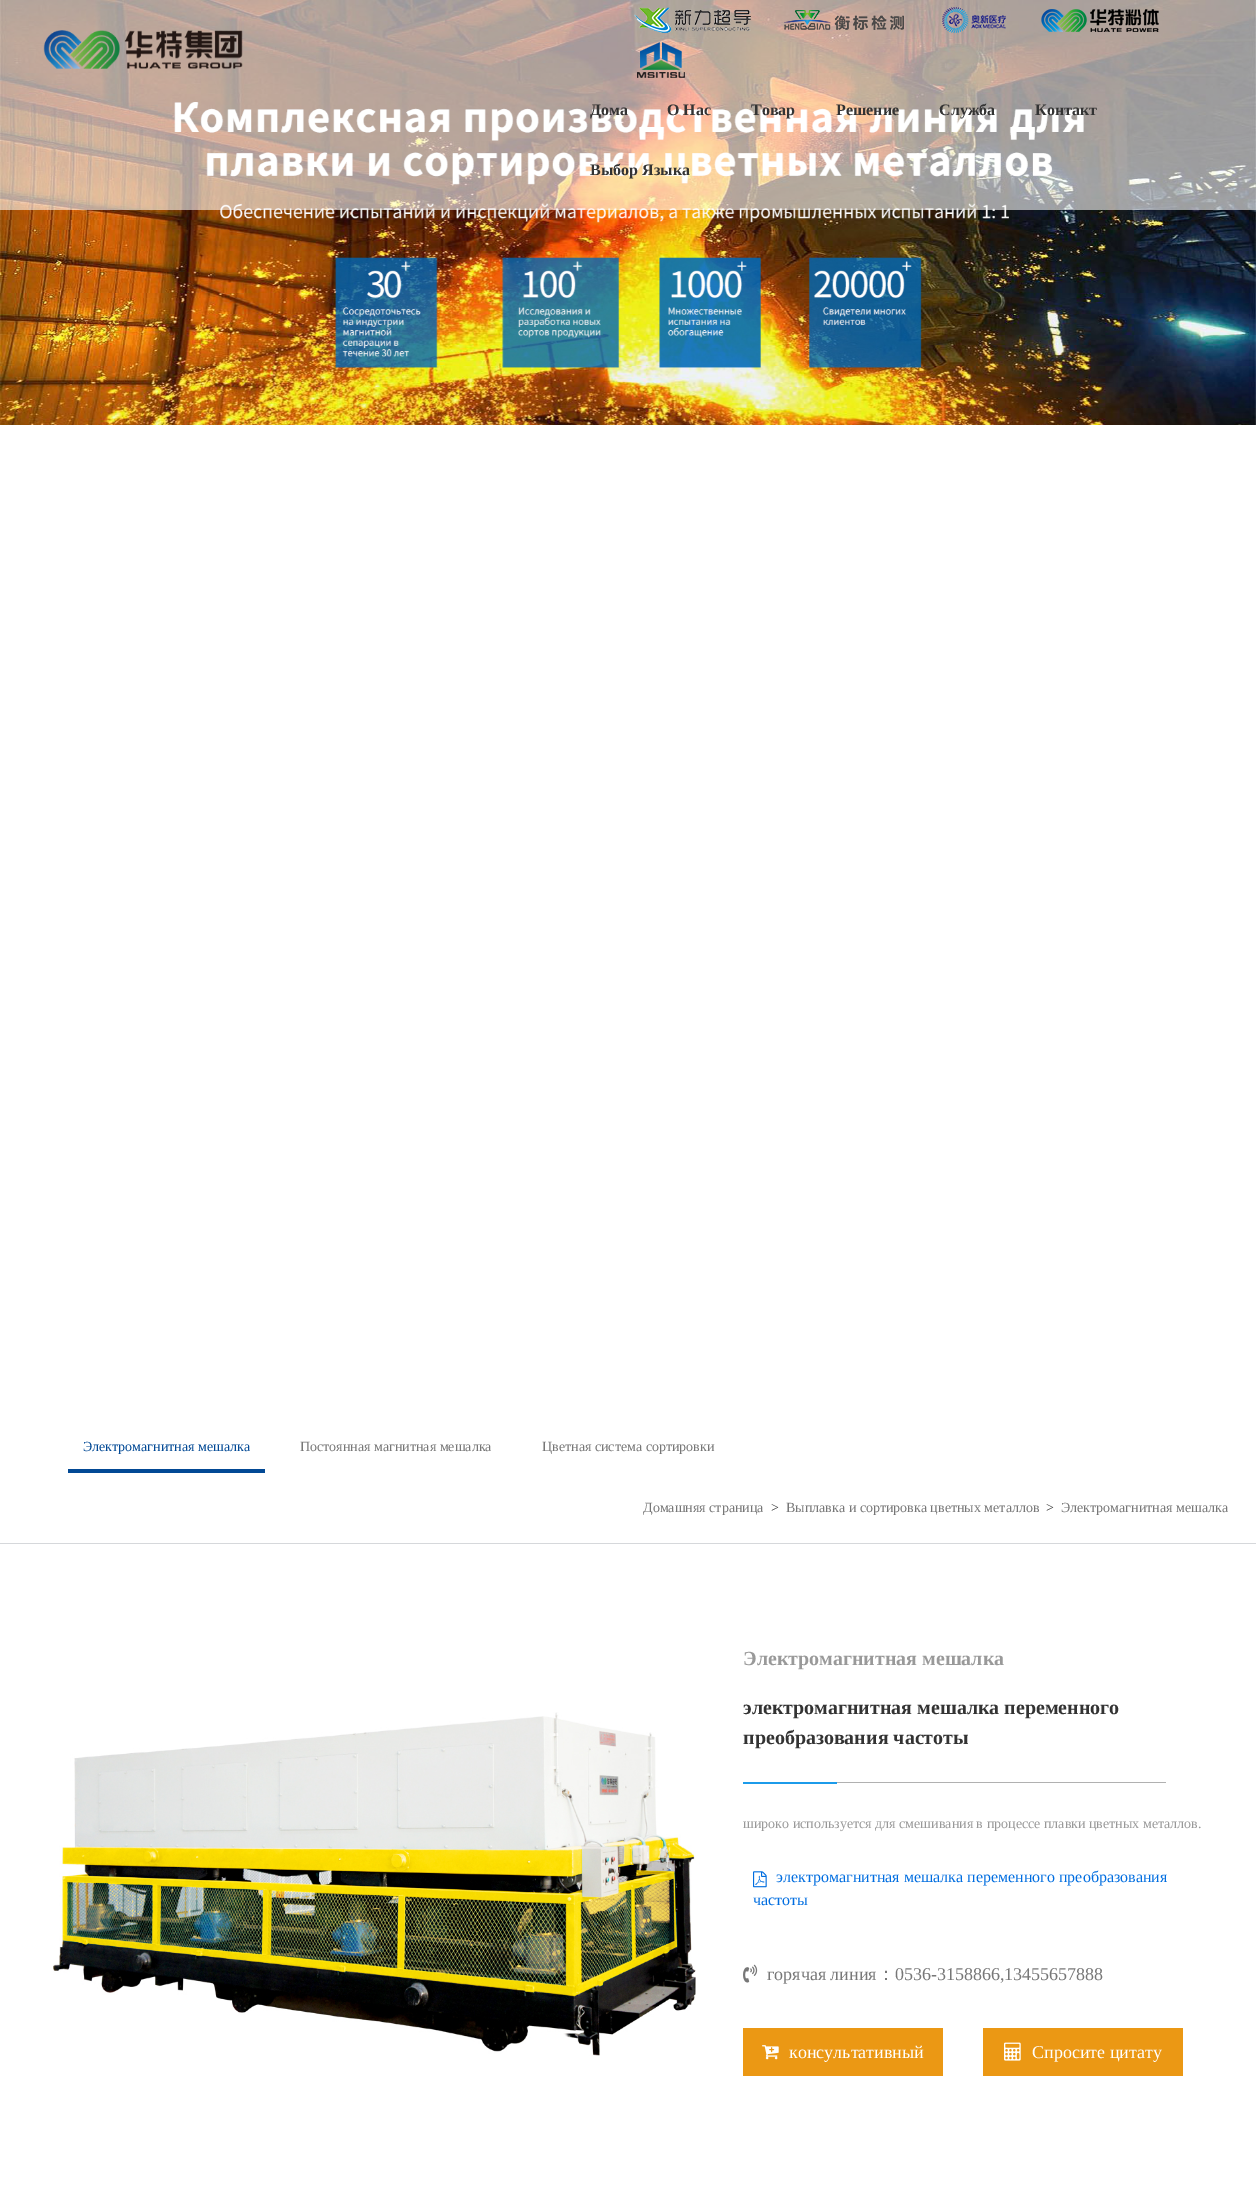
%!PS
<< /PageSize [1256 2186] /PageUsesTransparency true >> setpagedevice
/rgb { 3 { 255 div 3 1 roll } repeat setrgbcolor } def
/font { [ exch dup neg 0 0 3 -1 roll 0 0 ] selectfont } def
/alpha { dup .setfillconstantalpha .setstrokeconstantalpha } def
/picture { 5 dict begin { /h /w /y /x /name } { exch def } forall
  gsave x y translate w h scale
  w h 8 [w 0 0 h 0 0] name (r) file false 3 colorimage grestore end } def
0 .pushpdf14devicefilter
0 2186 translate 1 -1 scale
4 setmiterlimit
255 255 255 rgb
0 0 1256 2186 rectfill
(img/1.rgb) 0 0 1256 425 picture
0.6 alpha
0 0 1256 210 rectfill
1 alpha
(img/2.rgb) 43 30 200 39 picture
(img/3.rgb) 634 7 117 26 picture
(img/4.rgb) 784 10 120 20 picture
(img/5.rgb) 942 7 64 26 picture
(img/6.rgb) 1041 9 118 23 picture
(img/7.rgb) 637 42 48 36 picture
214 216 219 rgb
0 1543 1256 1 rectfill
2 73 149 rgb
68 1469 197 4 rectfill
(img/8.rgb) 53 1712 643 344 picture
28 155 234 rgb
743 1782 94 2 rectfill
177 177 177 rgb
837 1782 329 1 rectfill
(img/9.rgb) 753 1871 14 17 picture
(img/10.rgb) 743 1964 15 19 picture
235 152 20 rgb
743 2028 200 48 rectfill
(img/11.rgb) 762 2045 17 15 picture
983 2028 200 48 rectfill
(img/12.rgb) 1004 2042 17 19 picture
/LiberationSerif-Bold 16 font
51 51 51 rgb
[
  [(Дома) 590 115]
  [(О Нас) 667 115]
  [(Товар) 751 115]
  [(Решение) 836 115]
  [(Служба) 939 115]
  [(Контакт) 1035 115]
  [(Выбор Языка) 590 175]
] { aload pop moveto show } forall
/LiberationSerif-Regular 14 font
2 73 149 rgb
83 1451 moveto (Электромагнитная мешалка) show
119 119 119 rgb
[
  [(Постоянная магнитная мешалка) 300 1451]
  [(Цветная система сортировки) 542 1451]
  [(Домашняя страница) 643 1512]
] { aload pop moveto show } forall
51 51 51 rgb
771 1512 moveto (>) show
119 119 119 rgb
786 1512 moveto (Выплавка и сортировка цветных металлов) show
51 51 51 rgb
1046 1512 moveto (>) show
119 119 119 rgb
1061 1512 moveto (Электромагнитная мешалка) show
/LiberationSerif-Bold 20 font
153 153 153 rgb
743 1665 moveto (Электромагнитная мешалка) show
51 51 51 rgb
743 1714 moveto (электромагнитная мешалка переменного) show
743 1744 moveto (преобразования частоты) show
/LiberationSerif-Regular 14 font
153 153 153 rgb
743 1828 moveto (широко используется для смешивания в процессе плавки цветных металлов.) show
/LiberationSerif-Regular 16 font
0 109 224 rgb
776 1882 moveto (электромагнитная мешалка переменного преобразования) show
753 1905 moveto (частоты) show
/LiberationSerif-Regular 18 font
119 119 119 rgb
767 1980 moveto (горячая линия) show
/WenQuanYiZenHei-Medium 18 font
877 1980 moveto (：) show
/LiberationSerif-Regular 18 font
895 1980 moveto (0536-3158866,13455657888) show
255 255 255 rgb
789 2058 moveto (консультативный) show
1032 2058 moveto (Спросите цитату) show
.poppdf14devicefilter showpage
